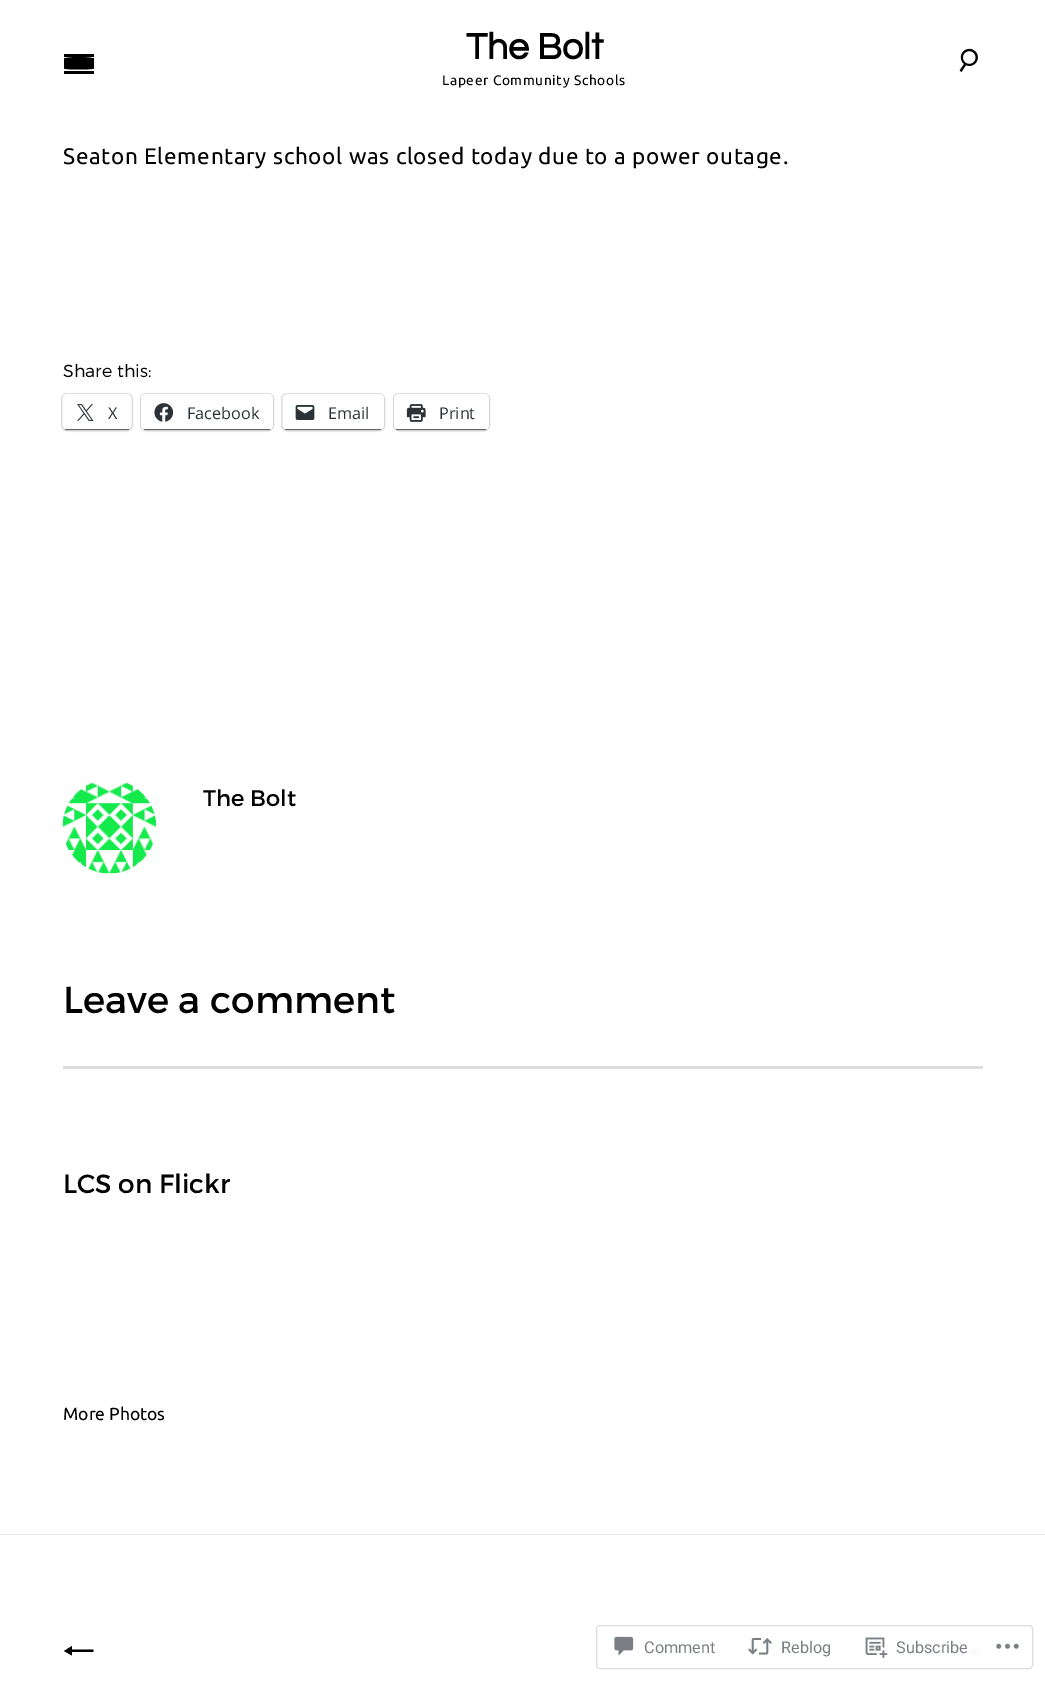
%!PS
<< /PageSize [1045 1681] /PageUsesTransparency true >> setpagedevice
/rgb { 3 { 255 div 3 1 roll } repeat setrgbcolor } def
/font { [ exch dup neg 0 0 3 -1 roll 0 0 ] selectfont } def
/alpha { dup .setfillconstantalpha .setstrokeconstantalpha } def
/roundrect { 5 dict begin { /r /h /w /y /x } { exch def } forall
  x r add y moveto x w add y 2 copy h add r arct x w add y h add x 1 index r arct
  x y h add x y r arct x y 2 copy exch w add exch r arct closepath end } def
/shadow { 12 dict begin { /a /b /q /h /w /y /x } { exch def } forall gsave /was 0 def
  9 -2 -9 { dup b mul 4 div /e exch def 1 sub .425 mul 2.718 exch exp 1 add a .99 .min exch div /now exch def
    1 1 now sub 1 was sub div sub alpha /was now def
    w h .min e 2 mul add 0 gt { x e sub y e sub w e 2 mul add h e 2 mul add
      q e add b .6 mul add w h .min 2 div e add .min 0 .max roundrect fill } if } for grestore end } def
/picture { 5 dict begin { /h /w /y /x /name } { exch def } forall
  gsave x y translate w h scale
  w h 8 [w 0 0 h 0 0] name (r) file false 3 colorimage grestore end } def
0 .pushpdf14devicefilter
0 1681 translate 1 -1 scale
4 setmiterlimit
255 255 255 rgb
0 0 1045 1681 rectfill
0 0 0 rgb
79 57 moveto 87 57 94 58 94 58.5 curveto 94 68.5 lineto 94 69 87 69.5 79 69.5 curveto 70.5 69.5 64 69 64 68.5 curveto 64 58.5 lineto 64 58 70.5 57 79 57 curveto closepath fill
64 54 30 3 rectfill
64 71 30 3 rectfill
(img/1.rgb) 959 48 19 24 picture
224 224 224 rgb
61.5 393.5 71 37 5.5 roundrect stroke
0 0 0 rgb
63 395 68 36 5 1 0.12 shadow
255 255 255 rgb
63 394 68 36 5 roundrect fill
102 102 102 rgb
65 429 64 1 rectfill
(img/2.rgb) 77 404 17 17 picture
224 224 224 rgb
140.5 393.5 133 37 5.5 roundrect stroke
0 0 0 rgb
141 395 132 36 5 1 0.12 shadow
255 255 255 rgb
141 394 132 36 5 roundrect fill
102 102 102 rgb
144 429 126 1 rectfill
(img/3.rgb) 154 403 20 19 picture
224 224 224 rgb
281.5 393.5 103 37 5.5 roundrect stroke
0 0 0 rgb
283 395 101 36 5 1 0.12 shadow
255 255 255 rgb
283 394 101 36 5 roundrect fill
102 102 102 rgb
285 429 96 1 rectfill
(img/4.rgb) 295 405 20 15 picture
224 224 224 rgb
393.5 393.5 96 37 5.5 roundrect stroke
0 0 0 rgb
394 395 95 36 5 1 0.12 shadow
255 255 255 rgb
394 394 95 36 5 roundrect fill
102 102 102 rgb
396 429 90 1 rectfill
(img/5.rgb) 406 404 20 18 picture
(img/6.rgb) 62 782 95 92 picture
220 220 222 rgb
63 1066 920 3 rectfill
234 234 234 rgb
0 1534 1045 1 rectfill
0 0 0 rgb
93.5 1649.5 moveto 72 1649.5 lineto 72 1646 lineto 64 1651 lineto 72 1655.5 lineto 72 1652 lineto 93.5 1652 lineto closepath fill
951.5 1653.5 moveto 973 1653.5 lineto 973 1657 lineto 981 1652 lineto 973 1647.5 lineto 973 1651 lineto 951.5 1651 lineto closepath fill
0.98 alpha
255 255 255 rgb
596.5 1625.5 436 43 3.5 roundrect fill
1 alpha
221 221 223 rgb
596.5 1625.5 436 43 3.5 roundrect stroke
(img/7.rgb) 614 1636 20 20 picture
(img/8.rgb) 748 1637 24 18 picture
(img/9.rgb) 865 1637 23 21 picture
(img/10.rgb) 996 1643 23 6 picture
/Questrial-Bold 37.5 font
0 0 0 rgb
466 59 moveto (The Bolt) show
/Ubuntu-Regular 13.75 font
442 85 moveto 0.62 0 (Lapeer Community Schools) ashow
/Ubuntu-Regular 22.5 font
63 164 moveto 0.62 0 (Seaton Elementary school was closed today due to a power outage.) ashow
/Montserrat-Light 17.5 font
63 377 moveto (Share this:) show
/OpenSans-Regular 16.25 font
44 51 56 rgb
[
  [(X) 108 419]
  [(Facebook) 187 419]
  [(Email) 328 419]
  [(Print) 439 419]
] { aload pop moveto show } forall
/Montserrat-Regular 22.5 font
0 0 0 rgb
203 806 moveto (The Bolt) show
/Montserrat-Regular 37.5 font
63 1013 moveto (Leave a comment) show
/Montserrat-Regular 26.25 font
63 1193 moveto (LCS on Flickr) show
/Ubuntu-Regular 17.5 font
63 1420 moveto (More Photos) show
/Roboto-Regular 16.25 font
123 127 133 rgb
[
  [(Comment) 644 1653]
  [(Reblog) 781 1653]
  [(Subscribe) 896 1653]
] { aload pop moveto show } forall
.poppdf14devicefilter showpage
